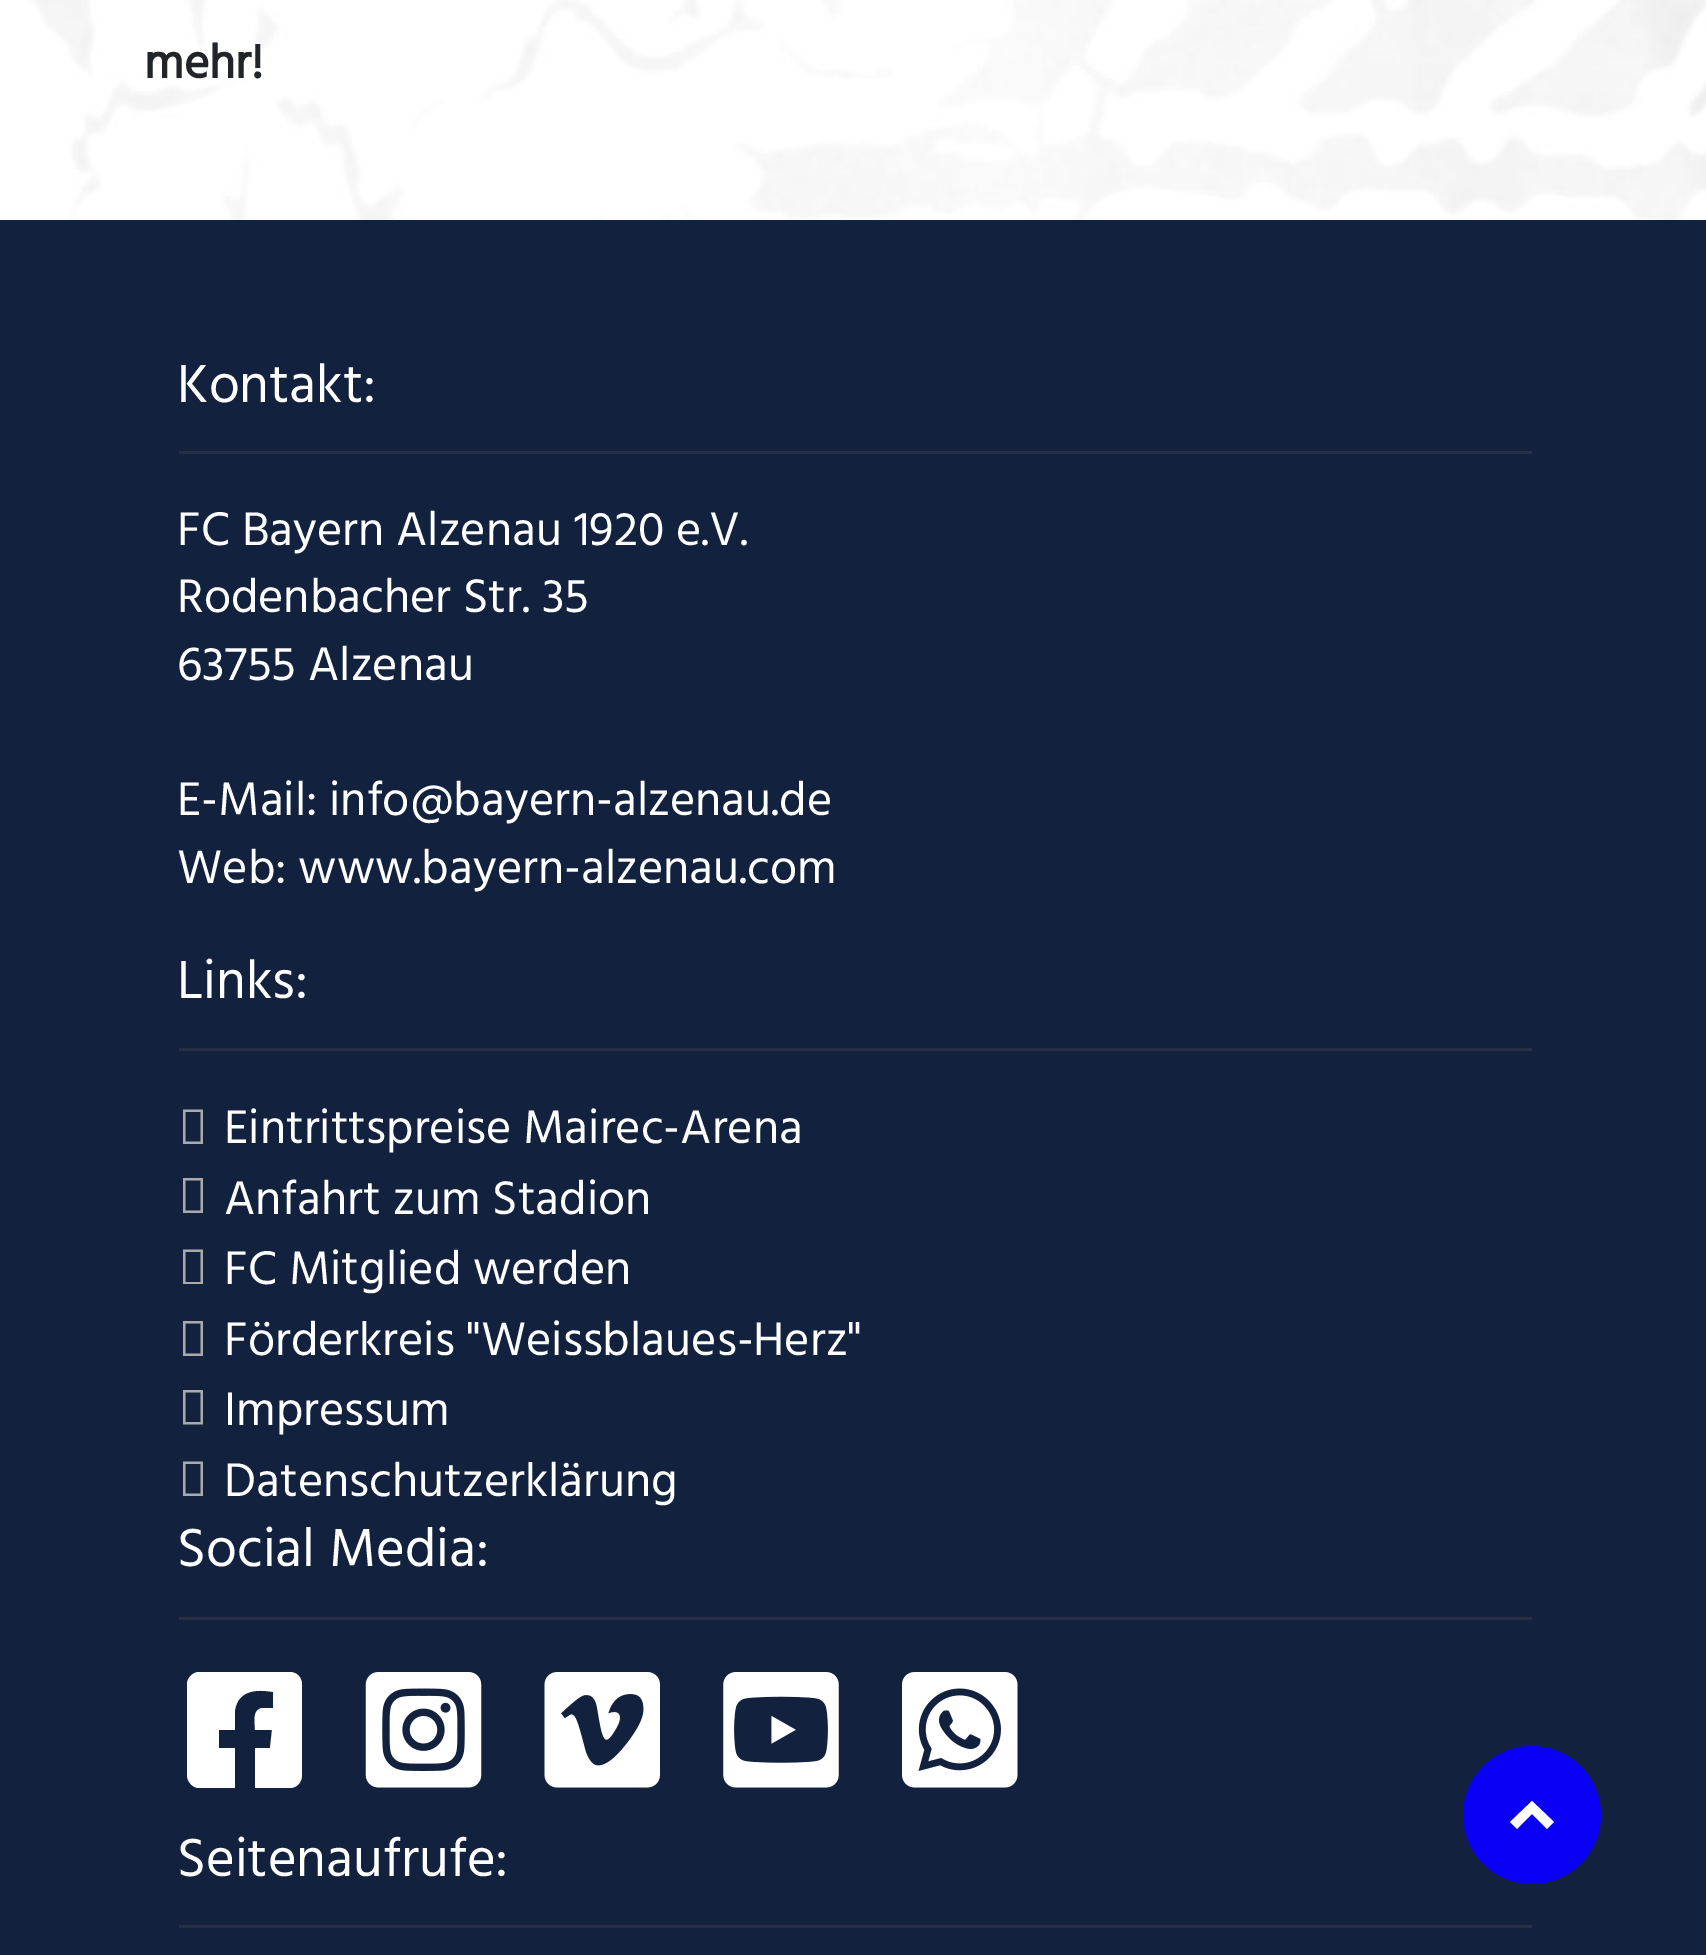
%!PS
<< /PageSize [1706 1955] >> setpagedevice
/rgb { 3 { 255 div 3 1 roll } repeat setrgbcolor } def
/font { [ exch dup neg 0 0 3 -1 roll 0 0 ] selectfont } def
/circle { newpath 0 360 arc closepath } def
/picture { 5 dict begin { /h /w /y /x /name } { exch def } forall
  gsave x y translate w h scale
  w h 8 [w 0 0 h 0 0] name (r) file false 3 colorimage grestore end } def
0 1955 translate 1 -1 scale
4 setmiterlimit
255 255 255 rgb
0 0 1706 1955 rectfill
(img/1.rgb) 0 0 1706 220 picture
[
  [0 220 1706 1735 18 34 62]
  [179 451 1353 3 39 47 68]
  [179 1048 1353 3 39 47 68]
] { aload pop rgb rectfill } forall
170 170 170 rgb
183 1144 moveto 183 1109.5 lineto 203 1109.5 lineto 203 1144 lineto closepath 185.5 1141.5 moveto 200.5 1141.5 lineto 200.5 1112 lineto 185.5 1112 lineto closepath fill
183 1213 moveto 183 1178 lineto 203 1178 lineto 203 1213 lineto closepath 185.5 1210.5 moveto 200.5 1210.5 lineto 200.5 1180.5 lineto 185.5 1180.5 lineto closepath fill
183 1284 moveto 183 1249.5 lineto 203 1249.5 lineto 203 1284 lineto closepath 185.5 1282 moveto 200.5 1282 lineto 200.5 1252 lineto 185.5 1252 lineto closepath fill
183 1356 moveto 183 1321 lineto 203 1321 lineto 203 1356 lineto closepath 185.5 1353.5 moveto 200.5 1353.5 lineto 200.5 1323.5 lineto 185.5 1323.5 lineto closepath fill
183 1424.5 moveto 183 1390 lineto 203 1390 lineto 203 1424.5 lineto closepath 185.5 1422 moveto 200.5 1422 lineto 200.5 1392.5 lineto 185.5 1392.5 lineto closepath fill
183 1496 moveto 183 1461.5 lineto 203 1461.5 lineto 203 1496 lineto closepath 185.5 1493.5 moveto 200.5 1493.5 lineto 200.5 1464 lineto 185.5 1464 lineto closepath fill
39 47 68 rgb
179 1617 1353 3 rectfill
255 255 255 rgb
290 1672 moveto 199 1672 lineto 193 1672 187 1678 187 1684 curveto 187 1775 lineto 187 1782 193 1788 199 1788 curveto 235 1788 lineto 235 1748 lineto 219 1748 lineto 219 1730 lineto 235 1730 lineto 235 1710 lineto 238 1690 257 1689 273 1692 curveto 273 1708 lineto 262 1708 lineto 252 1710 255 1722 255 1730 curveto 272 1730 lineto 270 1748 lineto 255 1748 lineto 255 1788 lineto 290 1788 lineto 297 1788 302 1782 302 1775 curveto 302 1684 lineto 302 1678 297 1672 290 1672 curveto closepath fill
(img/2.rgb) 365 1672 117 116 picture
(img/3.rgb) 544 1672 116 116 picture
(img/4.rgb) 723 1672 116 116 picture
(img/5.rgb) 902 1672 116 116 picture
39 47 68 rgb
179 1925 1353 3 rectfill
10 0 245 rgb
1532 1815 69 circle fill
255 255 255 rgb
1532 1801 moveto 1554 1822 lineto 1547 1829 lineto 1532 1814 lineto 1517 1829 lineto 1510 1822 lineto closepath fill
/HindMadurai-Bold 48.4 font
33 37 41 rgb
144 78 moveto (mehr!) show
/HindMadurai-Regular 55 font
255 255 255 rgb
177 402 moveto (Kontakt:) show
/HindMadurai-Regular 48.4 font
[
  [(FC Bayern Alzenau 1920 e.V.) 177 545]
  [(Rodenbacher Str. 35) 177 612]
  [(63755 Alzenau) 177 680]
  [(E-Mail: info@bayern-alzenau.de) 177 815]
  [(Web: www.bayern-alzenau.com) 177 883]
] { aload pop moveto show } forall
/HindMadurai-Regular 55 font
177 998 moveto (Links:) show
/HindMadurai-Regular 48.4 font
[
  [(Eintrittspreise Mairec-Arena) 224 1143]
  [(Anfahrt zum Stadion) 224 1214]
  [(FC Mitglied werden) 224 1284]
  [(Förderkreis "Weissblaues-Herz") 224 1355]
  [(Impressum) 224 1425]
  [(Datenschutzerklärung) 224 1496]
] { aload pop moveto show } forall
/HindMadurai-Regular 55 font
177 1566 moveto (Social Media:) show
177 1876 moveto (Seitenaufrufe:) show
showpage
